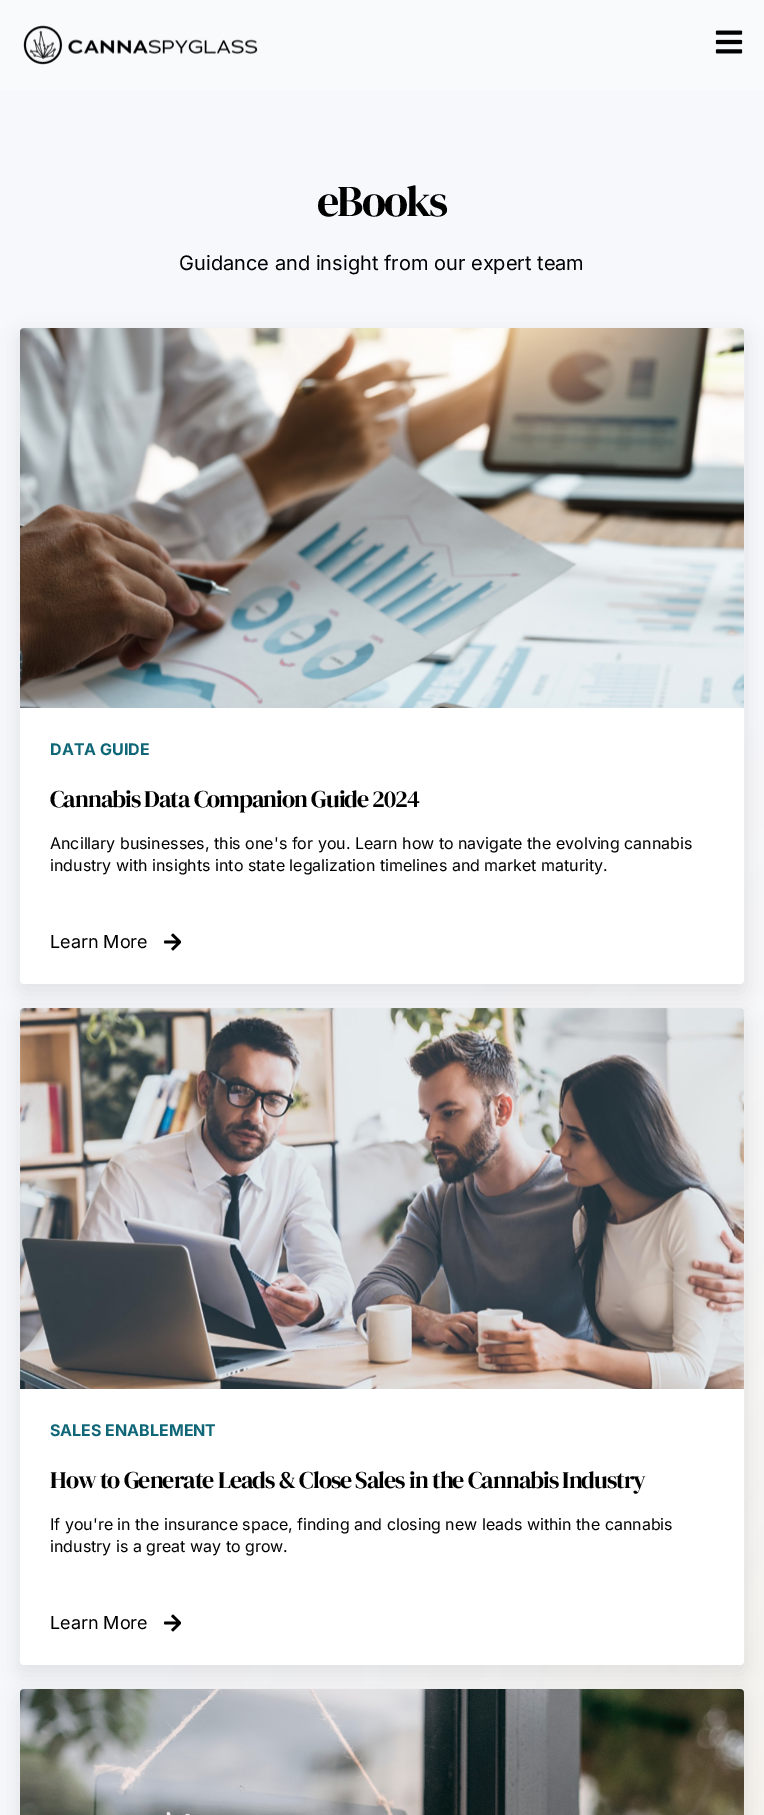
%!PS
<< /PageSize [764 1815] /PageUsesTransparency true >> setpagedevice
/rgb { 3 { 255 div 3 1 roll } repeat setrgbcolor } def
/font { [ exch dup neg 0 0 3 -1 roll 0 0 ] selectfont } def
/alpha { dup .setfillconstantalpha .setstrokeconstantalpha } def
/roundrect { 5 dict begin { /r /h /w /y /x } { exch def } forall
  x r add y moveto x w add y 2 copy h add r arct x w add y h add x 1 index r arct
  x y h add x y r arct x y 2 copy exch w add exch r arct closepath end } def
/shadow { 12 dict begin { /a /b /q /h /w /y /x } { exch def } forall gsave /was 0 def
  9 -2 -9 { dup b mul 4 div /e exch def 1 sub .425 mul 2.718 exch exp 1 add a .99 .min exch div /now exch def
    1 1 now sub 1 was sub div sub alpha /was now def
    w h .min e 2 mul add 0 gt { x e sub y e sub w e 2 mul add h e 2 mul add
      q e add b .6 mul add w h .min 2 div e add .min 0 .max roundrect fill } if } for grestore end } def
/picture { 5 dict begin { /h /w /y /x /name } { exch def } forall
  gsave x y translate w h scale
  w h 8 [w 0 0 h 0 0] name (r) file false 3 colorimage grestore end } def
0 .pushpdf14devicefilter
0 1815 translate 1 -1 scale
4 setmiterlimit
248 250 252 rgb
0 0 764 1815 rectfill
(img/1.rgb) 23 25 235 40 picture
(img/2.rgb) 715 30 28 24 picture
(img/3.rgb) 0 90 764 1725 picture
0 0 0 rgb
18 334 728 660 6 9.5 0.08 shadow
255 255 255 rgb
20 328 724 656 4 roundrect fill
(img/4.rgb) 20 328 724 380 picture
(img/5.rgb) 164 933 17 18 picture
0 0 0 rgb
18 1014 728 661 6 9.5 0.08 shadow
255 255 255 rgb
20 1008 724 657 4 roundrect fill
(img/6.rgb) 20 1008 724 381 picture
(img/5.rgb) 164 1614 17 18 picture
0 0 0 rgb
18 1695 728 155 6 9.5 0.08 shadow
(img/7.rgb) 20 1689 724 126 picture
/DMSerifDisplay-Regular 44 font
317 216 moveto -2 0 (eBooks) ashow
/Inter-Regular 20 font
179 270 moveto (Guidance and insight from our expert team) show
/Inter-Bold 16 font
15 102 118 rgb
50 755 moveto (DATA GUIDE) show
/DMSerifDisplay-Regular 24 font
0 0 0 rgb
50 807 moveto -1 0 (Cannabis Data Companion Guide 2024) ashow
/Inter-Regular 16 font
50 849 moveto (Ancillary businesses, this one's for you. Learn how to navigate the evolving cannabis) show
50 871 moveto (industry with insights into state legalization timelines and market maturity.) show
/Inter-Regular 18 font
50 948 moveto (Learn More) show
/Inter-Bold 16 font
15 102 118 rgb
50 1436 moveto (SALES ENABLEMENT) show
/DMSerifDisplay-Regular 24 font
0 0 0 rgb
50 1488 moveto -1 0 (How to Generate Leads & Close Sales in the Cannabis Industry) ashow
/Inter-Regular 16 font
50 1530 moveto (If you're in the insurance space, finding and closing new leads within the cannabis) show
50 1552 moveto (industry is a great way to grow.) show
/Inter-Regular 18 font
50 1629 moveto (Learn More) show
.poppdf14devicefilter showpage
